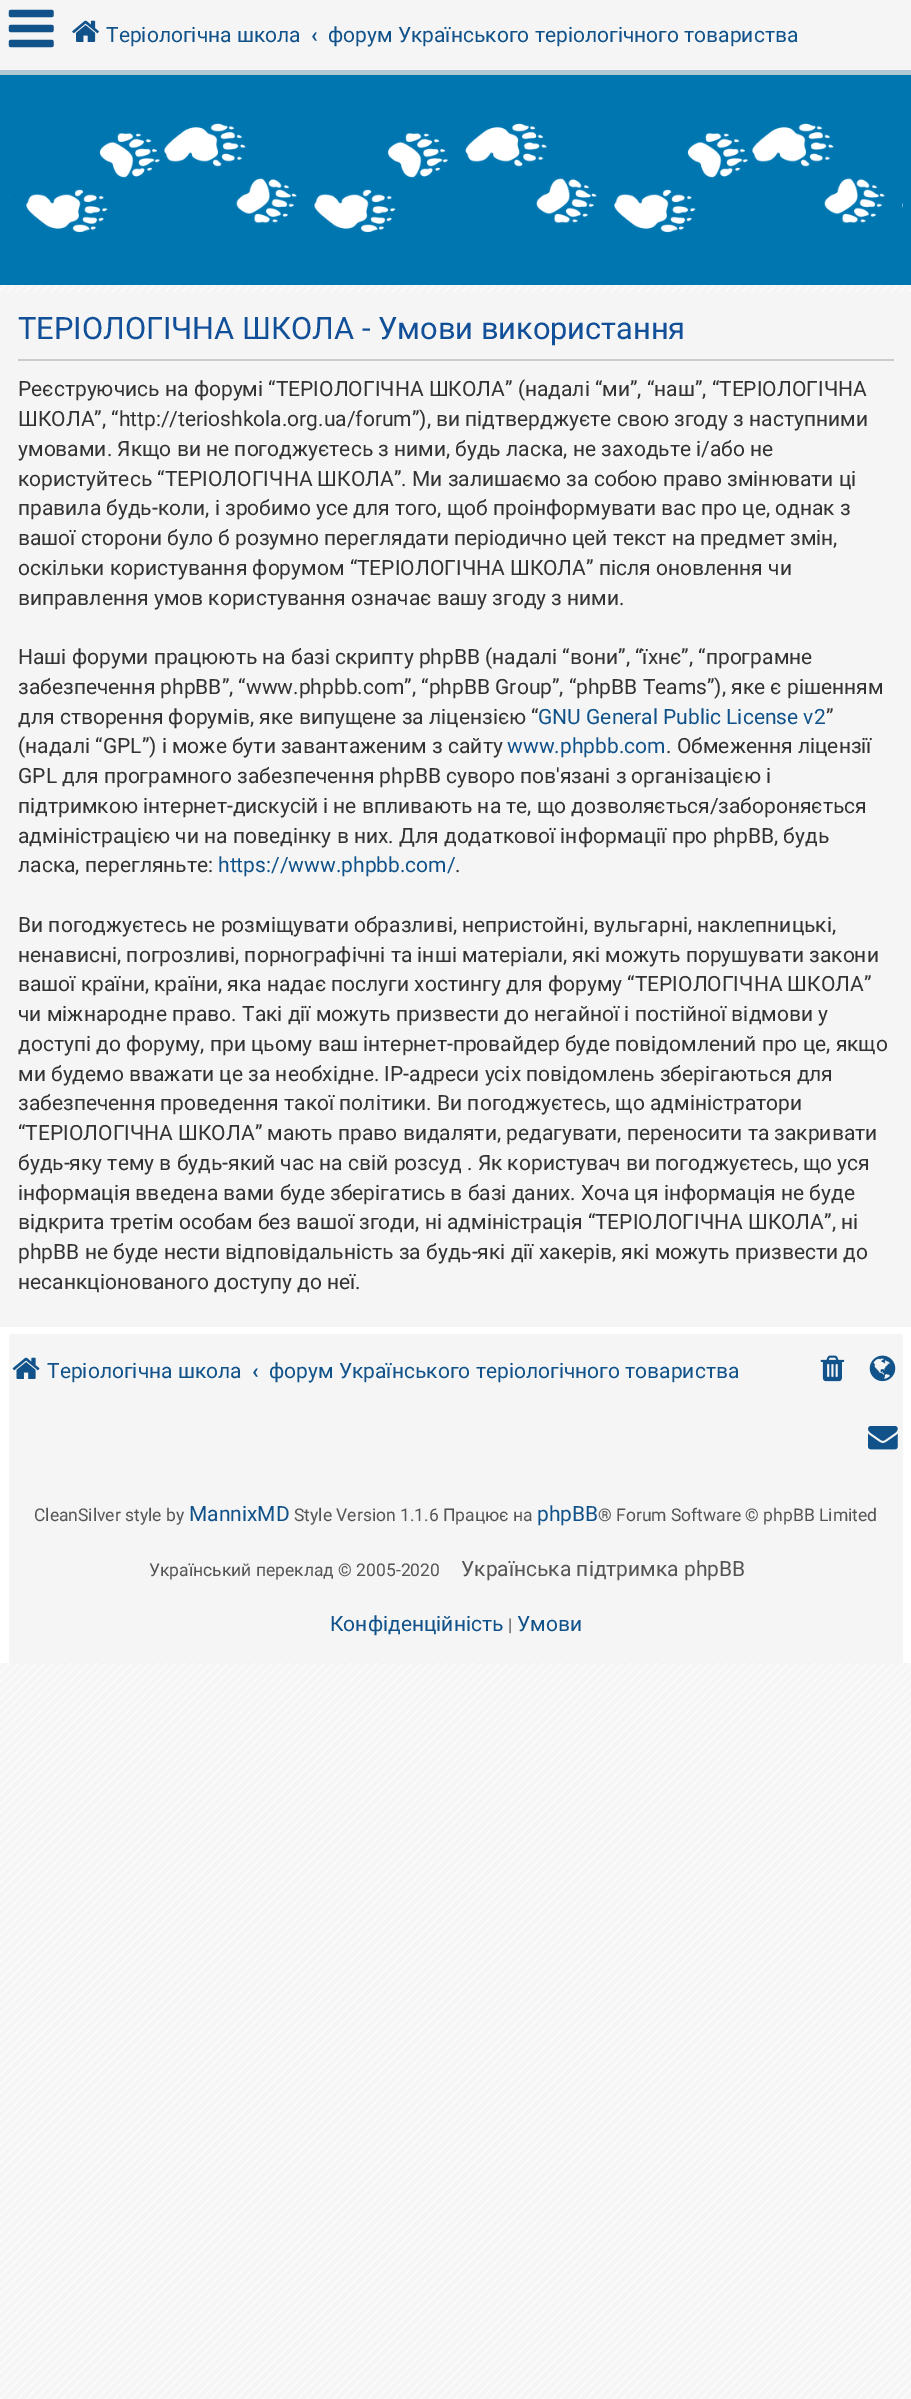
%!PS
<< /PageSize [911 2399] >> setpagedevice
/rgb { 3 { 255 div 3 1 roll } repeat setrgbcolor } def
/font { [ exch dup neg 0 0 3 -1 roll 0 0 ] selectfont } def
/picture { 5 dict begin { /h /w /y /x /name } { exch def } forall
  gsave x y translate w h scale
  w h 8 [w 0 0 h 0 0] name (r) file false 3 colorimage grestore end } def
0 2399 translate 1 -1 scale
4 setmiterlimit
255 255 255 rgb
0 0 911 2399 rectfill
(img/1.rgb) 0 285 911 2114 picture
245 245 245 rgb
0 0 911 70 rectfill
176 200 212 rgb
0 70 911 5 rectfill
(img/2.rgb) 8 9 46 39 picture
(img/3.rgb) 72 20 27 22 picture
0 118 177 rgb
0 75 911 210 rectfill
(img/4.rgb) 8 123 895 110 picture
[
  [0 1327 911 336 255 255 255]
  [0 292 911 1035 245 245 245]
  [18 359 876 2 204 204 204]
  [9 1334 894 329 245 245 245]
] { aload pop rgb rectfill } forall
(img/5.rgb) 12 1357 28 22 picture
(img/6.rgb) 820 1355 25 27 picture
(img/7.rgb) 869 1355 27 27 picture
(img/8.rgb) 868 1426 30 24 picture
/Roboto-Regular 21 font
16 82 137 rgb
106 42 moveto (Теріологічна школа) show
/Roboto-Bold 21 font
311 42 moveto (‹) show
/Roboto-Regular 21 font
328 42 moveto (форум Українського теріологічного товариства) show
/Roboto-Regular 30.8 font
17 80 152 rgb
18 339 moveto (ТЕРІОЛОГІЧНА ШКОЛА - Умови використання) show
/Roboto-Regular 21 font
51 51 51 rgb
[
  [(Реєструючись на форумі “ТЕРІОЛОГІЧНА ШКОЛА” \(надалі “ми”, “наш”, “ТЕРІОЛОГІЧНА) 18 396]
  [(ШКОЛА”, “http://terioshkola.org.ua/forum”\), ви підтверджуєте свою згоду з наступними) 18 426]
  [(умовами. Якщо ви не погоджуєтесь з ними, будь ласка, не заходьте і/або не) 18 456]
  [(користуйтесь “ТЕРІОЛОГІЧНА ШКОЛА”. Ми залишаємо за собою право змінювати ці) 18 486]
  [(правила будь-коли, і зробимо усе для того, щоб проінформувати вас про це, однак з) 18 515]
  [(вашої сторони було б розумно переглядати періодично цей текст на предмет змін,) 18 545]
  [(оскільки користування форумом “ТЕРІОЛОГІЧНА ШКОЛА” після оновлення чи) 18 575]
  [(виправлення умов користування означає вашу згоду з ними.) 18 605]
  [(Наші форуми працюють на базі скрипту phpBB \(надалі “вони”, “їхнє”, “програмне) 18 664]
  [(забезпечення phpBB”, “www.phpbb.com”, “phpBB Group”, “phpBB Teams”\), яке є рішенням) 18 694]
  [(для створення форумів, яке випущене за ліцензією “) 18 724]
] { aload pop moveto show } forall
16 82 137 rgb
538 724 moveto (GNU General Public License v2) show
51 51 51 rgb
826 724 moveto (”) show
18 753 moveto (\(надалі “GPL”\) і може бути завантаженим з сайту) show
16 82 137 rgb
507 753 moveto (www.phpbb.com) show
51 51 51 rgb
[
  [(. Обмеження ліцензії) 666 753]
  [(GPL для програмного забезпечення phpBB суворо пов'язані з організацією і) 18 783]
  [(підтримкою інтернет-дискусій і не впливають на те, що дозволяється/забороняється) 18 813]
  [(адміністрацією чи на поведінку в них. Для додаткової інформації про phpBB, будь) 18 843]
  [(ласка, перегляньте:) 18 872]
] { aload pop moveto show } forall
16 82 137 rgb
218 872 moveto (https://www.phpbb.com/) show
51 51 51 rgb
[
  [(.) 455 872]
  [(Ви погоджуєтесь не розміщувати образливі, непристойні, вульгарні, наклепницькі,) 18 932]
  [(ненависні, погрозливі, порнографічні та інші матеріали, які можуть порушувати закони) 18 962]
  [(вашої країни, країни, яка надає послуги хостингу для форуму “ТЕРІОЛОГІЧНА ШКОЛА”) 18 991]
  [(чи міжнародне право. Такі дії можуть призвести до негайної і постійної відмови у) 18 1021]
  [(доступі до форуму, при цьому ваш інтернет-провайдер буде повідомлений про це, якщо) 18 1051]
  [(ми будемо вважати це за необхідне. IP-адреси усіх повідомлень зберігаються для) 18 1081]
  [(забезпечення проведення такої політики. Ви погоджуєтесь, що адміністратори) 18 1110]
  [(“ТЕРІОЛОГІЧНА ШКОЛА” мають право видаляти, редагувати, переносити та закривати) 18 1140]
  [(будь-яку тему в будь-який час на свій розсуд . Як користувач ви погоджуєтесь, що уся) 18 1170]
  [(інформація введена вами буде зберігатись в базі даних. Хоча ця інформація не буде) 18 1200]
  [(відкрита третім особам без вашої згоди, ні адміністрація “ТЕРІОЛОГІЧНА ШКОЛА”, ні) 18 1229]
  [(phpBB не буде нести відповідальність за будь-які дії хакерів, які можуть призвести до) 18 1259]
  [(несанкціонованого доступу до неї.) 18 1289]
] { aload pop moveto show } forall
16 82 137 rgb
47 1378 moveto (Теріологічна школа) show
/Roboto-Bold 21 font
252 1378 moveto (‹) show
/Roboto-Regular 21 font
269 1378 moveto (форум Українського теріологічного товариства) show
/Roboto-Regular 17.5 font
85 85 85 rgb
34 1521 moveto (CleanSilver style by) show
/Roboto-Regular 21 font
16 82 137 rgb
189 1521 moveto (MannixMD) show
/Roboto-Regular 17.5 font
85 85 85 rgb
294 1521 moveto (Style Version 1.1.6 Працює на) show
/Roboto-Regular 21 font
16 82 137 rgb
537 1521 moveto (phpBB) show
/Roboto-Regular 17.5 font
85 85 85 rgb
598 1521 moveto (® Forum Software © phpBB Limited) show
149 1576 moveto (Український переклад © 2005-2020) show
/Roboto-Regular 21 font
461 1576 moveto (Українська підтримка phpBB) show
16 82 137 rgb
330 1631 moveto (Конфіденційність) show
/Roboto-Regular 17.5 font
85 85 85 rgb
508 1631 moveto (|) show
/Roboto-Regular 21 font
16 82 137 rgb
517 1631 moveto (Умови) show
showpage
